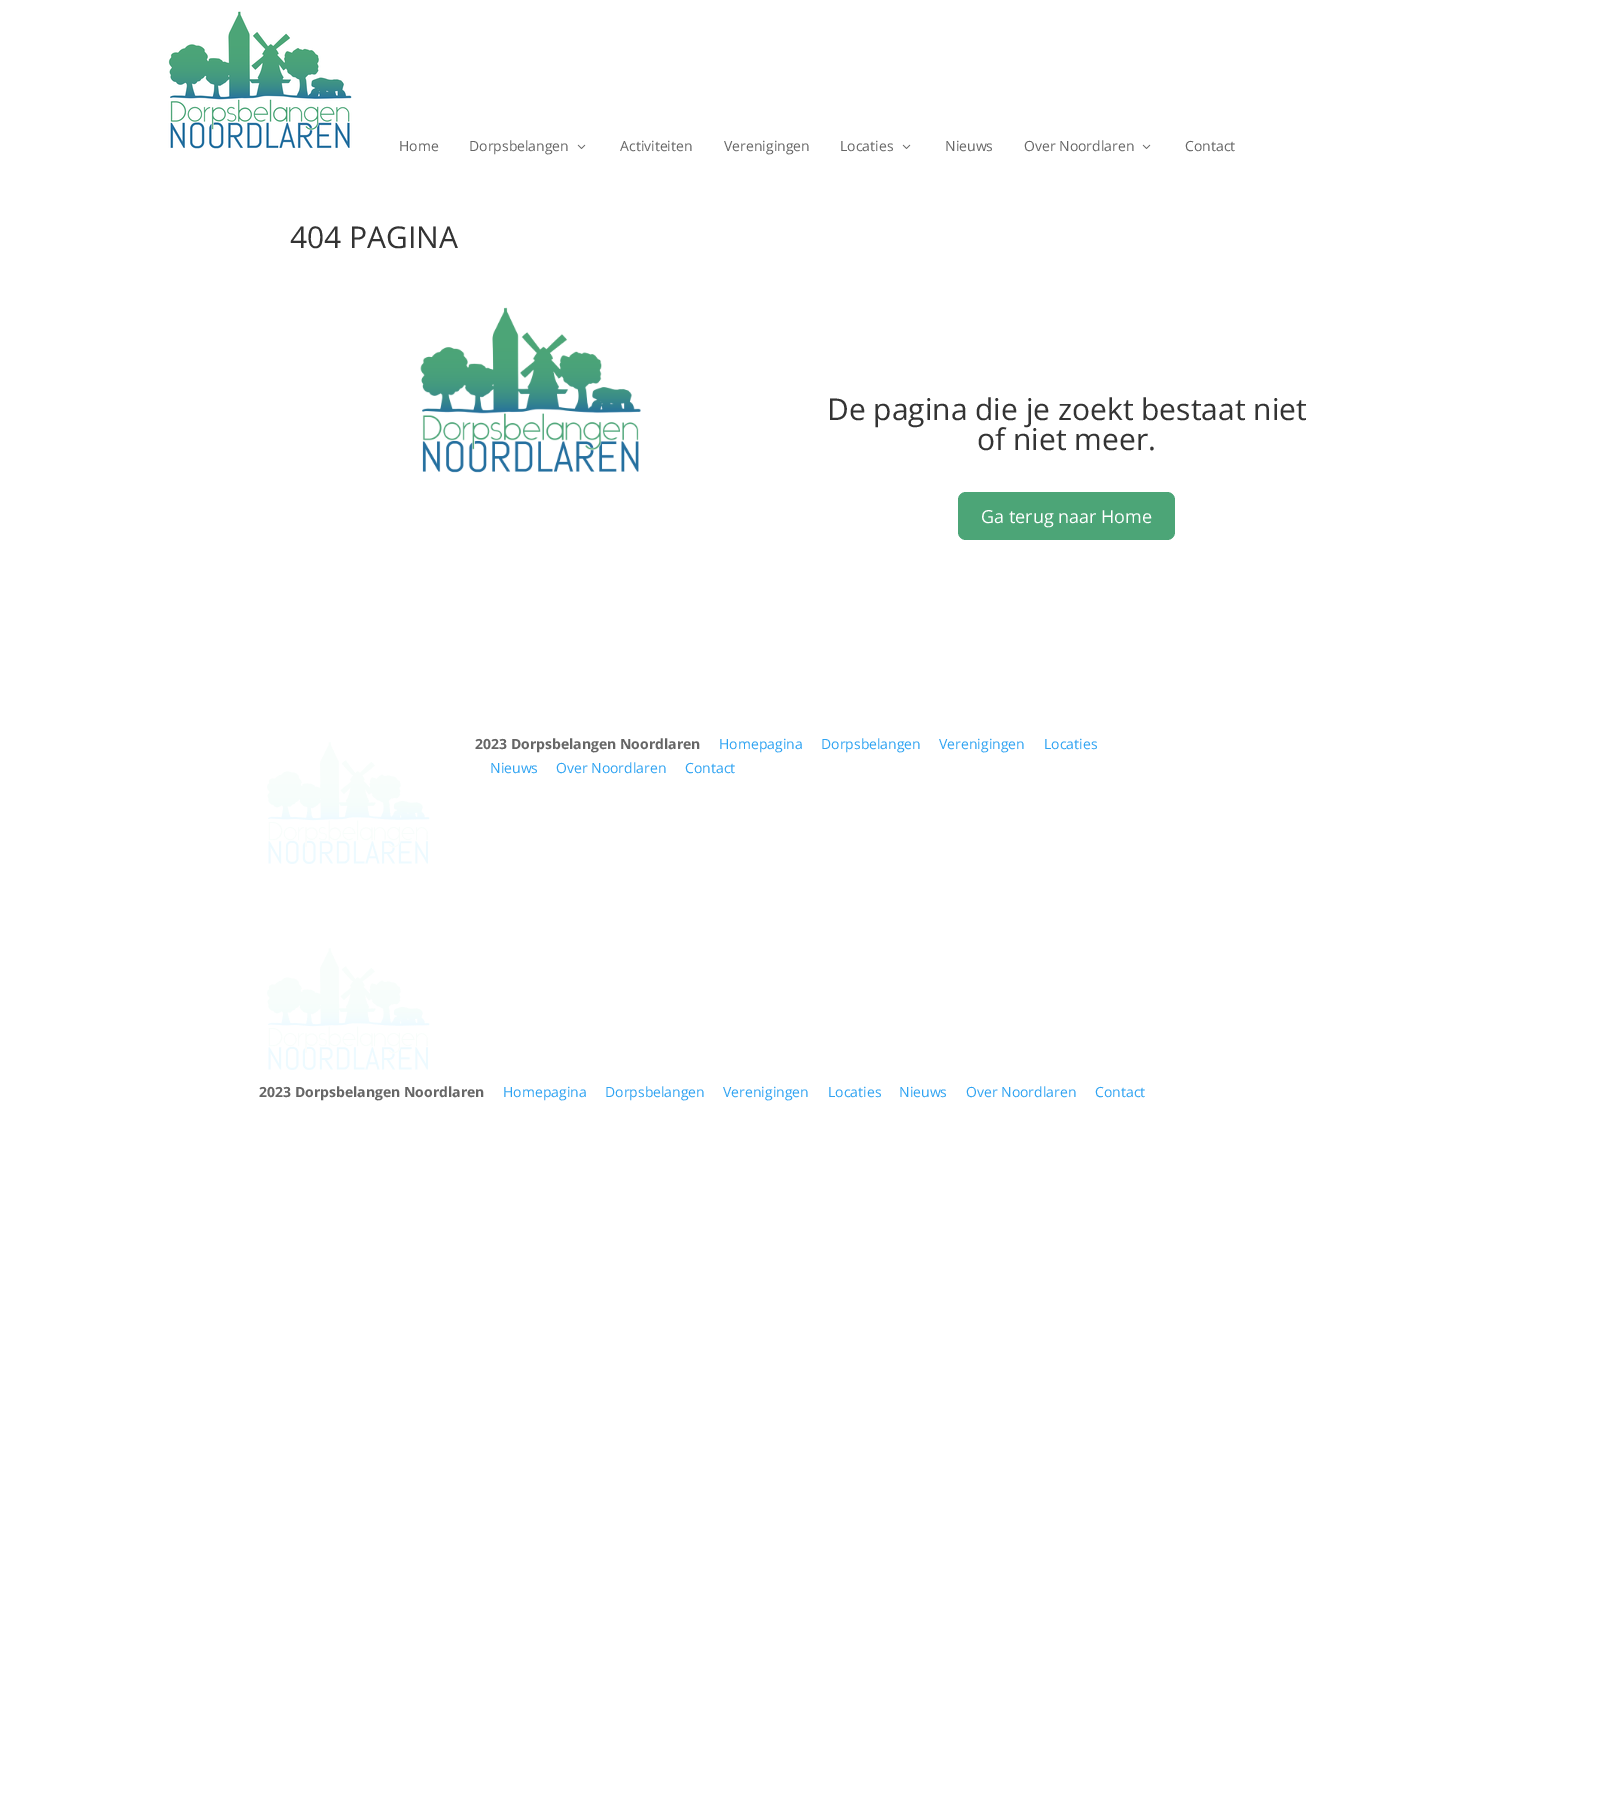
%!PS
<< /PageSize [1597 1820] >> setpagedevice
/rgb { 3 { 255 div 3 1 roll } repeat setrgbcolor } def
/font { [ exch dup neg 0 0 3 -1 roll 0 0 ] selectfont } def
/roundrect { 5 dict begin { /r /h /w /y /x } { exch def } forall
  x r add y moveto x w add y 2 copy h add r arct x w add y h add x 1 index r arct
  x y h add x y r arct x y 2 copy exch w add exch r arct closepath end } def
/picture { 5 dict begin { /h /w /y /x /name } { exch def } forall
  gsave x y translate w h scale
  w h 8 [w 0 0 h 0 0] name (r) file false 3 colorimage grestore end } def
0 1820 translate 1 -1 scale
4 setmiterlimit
255 255 255 rgb
0 0 1597 1820 rectfill
(img/1.rgb) 168 11 184 138 picture
(img/2.rgb) 577 144 9 5 picture
(img/2.rgb) 902 144 9 5 picture
(img/2.rgb) 1142 144 9 5 picture
(img/3.rgb) 420 307 221 166 picture
76 165 119 rgb
958 492 217 48 8 roundrect fill
(img/4.rgb) 267 742 163 122 picture
(img/4.rgb) 267 948 163 122 picture
/OpenSans-Regular 14 font
102 102 102 rgb
[
  [(Home) 399 151]
  [(Dorpsbelangen) 469 151]
  [(Activiteiten) 620 151]
  [(Verenigingen) 724 151]
  [(Locaties) 840 151]
  [(Nieuws) 945 151]
  [(Over Noordlaren) 1024 151]
  [(Contact) 1185 151]
] { aload pop moveto show } forall
/OpenSans-Regular 30 font
51 51 51 rgb
[
  [(404 PAGINA) 290 248]
  [(De pagina die je zoekt bestaat niet) 827 420]
  [(of niet meer.) 977 450]
] { aload pop moveto show } forall
/OpenSans-Regular 18 font
255 255 255 rgb
981 523 moveto (Ga terug naar Home) show
/OpenSans-Bold 14 font
102 102 102 rgb
475 749 moveto (2023 Dorpsbelangen Noordlaren) show
/OpenSans-Regular 14 font
46 163 242 rgb
[
  [(Homepagina) 719 749]
  [(Dorpsbelangen) 821 749]
  [(Verenigingen) 939 749]
  [(Locaties) 1044 749]
  [(Nieuws) 490 773]
  [(Over Noordlaren) 556 773]
  [(Contact) 685 773]
] { aload pop moveto show } forall
/OpenSans-Bold 14 font
102 102 102 rgb
259 1097 moveto (2023 Dorpsbelangen Noordlaren) show
/OpenSans-Regular 14 font
46 163 242 rgb
[
  [(Homepagina) 503 1097]
  [(Dorpsbelangen) 605 1097]
  [(Verenigingen) 723 1097]
  [(Locaties) 828 1097]
  [(Nieuws) 899 1097]
  [(Over Noordlaren) 966 1097]
  [(Contact) 1095 1097]
] { aload pop moveto show } forall
showpage
